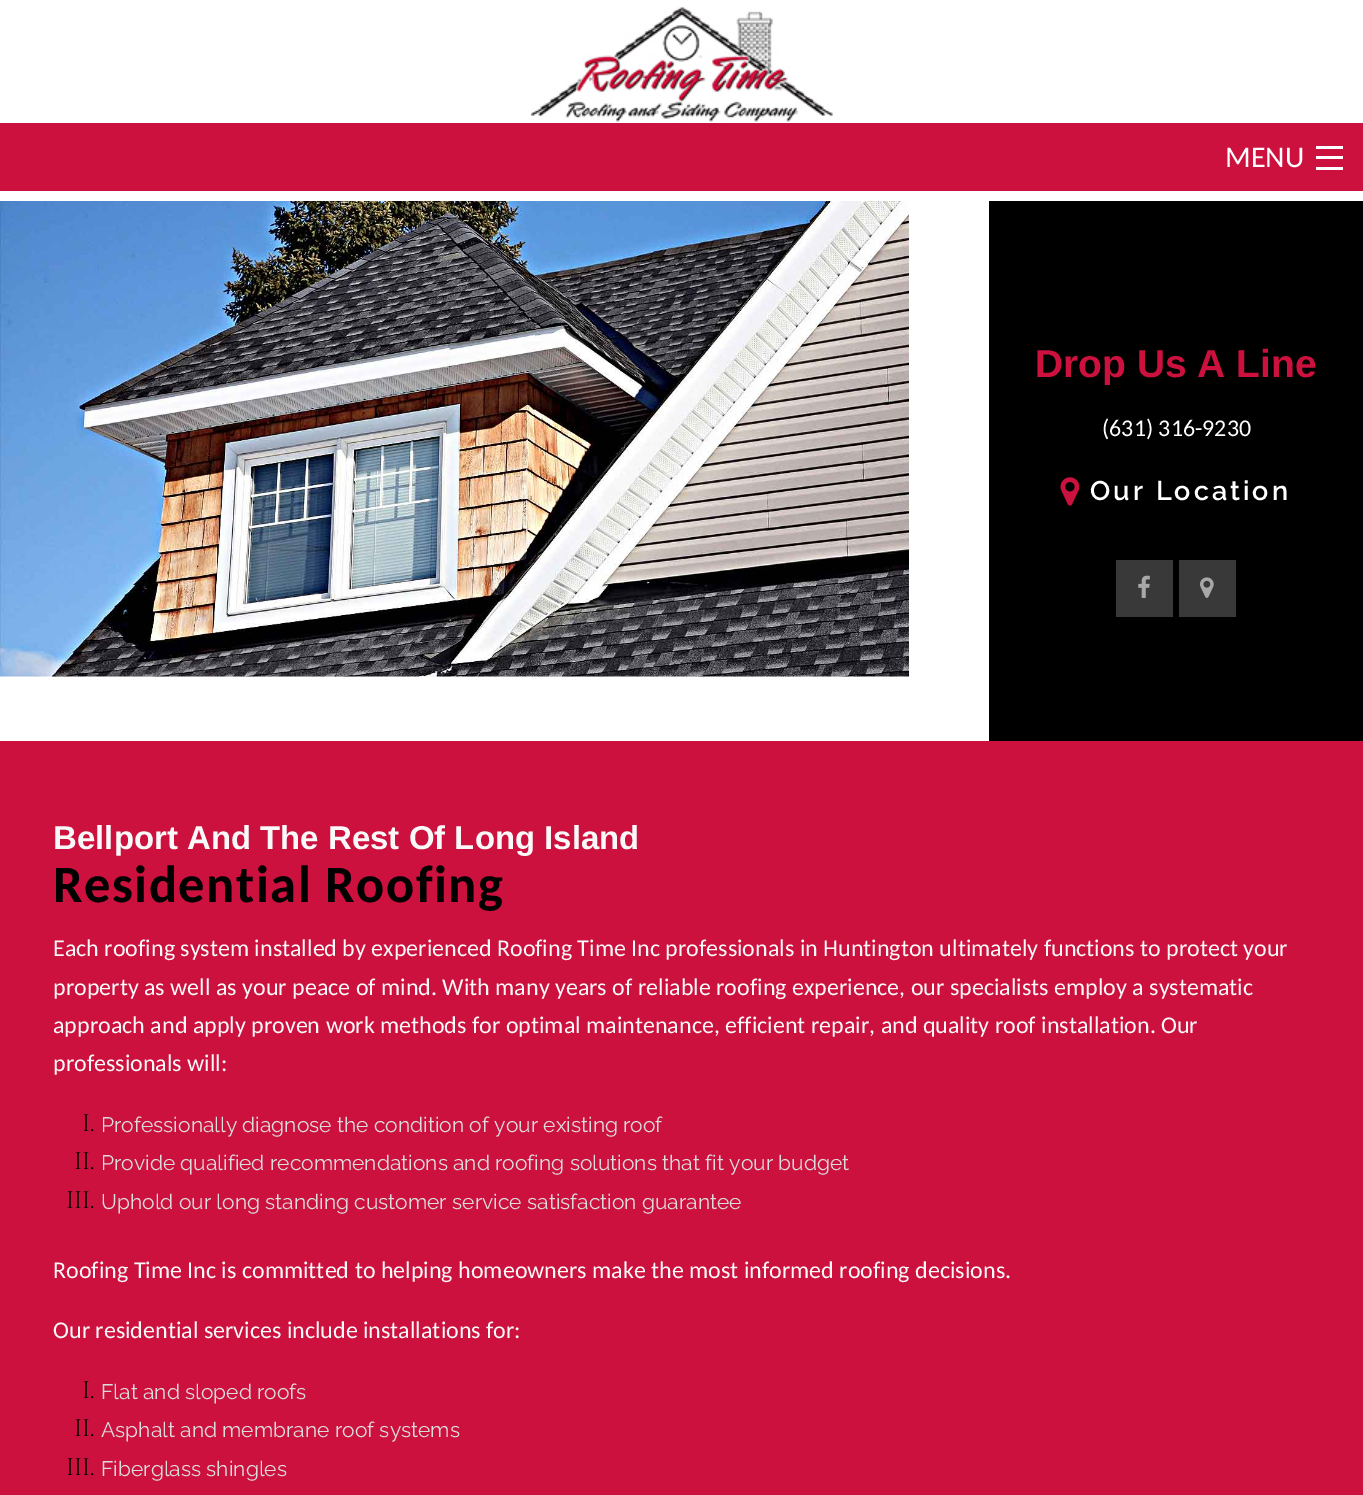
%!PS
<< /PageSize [1363 1495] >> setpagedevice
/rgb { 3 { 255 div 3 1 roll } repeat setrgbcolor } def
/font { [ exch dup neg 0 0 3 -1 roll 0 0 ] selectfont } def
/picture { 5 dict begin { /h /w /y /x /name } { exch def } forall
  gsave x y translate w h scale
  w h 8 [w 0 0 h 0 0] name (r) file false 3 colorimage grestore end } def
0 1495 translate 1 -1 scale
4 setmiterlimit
255 255 255 rgb
0 0 1363 1495 rectfill
(img/1.rgb) 530 7 303 115 picture
[
  [0 123 1363 68 204 17 62]
  [1316 167 27 3 255 255 255]
  [1316 156 27 3 255 255 255]
  [1316 146 27 3 255 255 255]
] { aload pop rgb rectfill } forall
(img/2.rgb) 0 201 909 476 picture
0 0 0 rgb
989 201 374 540 rectfill
(img/3.rgb) 1060 477 20 29 picture
57 57 57 rgb
1116 560 57 57 rectfill
(img/4.rgb) 1138 575 12 23 picture
1179 560 57 57 rectfill
(img/5.rgb) 1200 577 14 21 picture
204 17 62 rgb
0 741 1363 754 rectfill
/Carlito-Regular 30 font
255 255 255 rgb
1225 167 moveto (MENU) show
/LiberationSans-Bold 39 font
204 17 62 rgb
1035 377 moveto (Drop Us A Line) show
/Carlito-Regular 24 font
255 255 255 rgb
1102 436 moveto (\(631\) 316-9230) show
/Raleway-SemiBold 27 font
1090 500 moveto 3 0 (Our Location) ashow
/LiberationSans-Bold 33 font
249 249 249 rgb
53 849 moveto (Bellport And The Rest Of Long Island) show
/Carlito-Bold 52.5 font
0 0 0 rgb
53 902 moveto 1.5 0 (Residential Roofing) ashow
/Carlito-Regular 24 font
249 249 249 rgb
[
  [(Each roofing system installed by experienced Roofing Time Inc professionals in Huntington ultimately functions to protect your) 53 956]
  [(property as well as your peace of mind. With many years of reliable roofing experience, our specialists employ a systematic) 53 995]
  [(approach and apply proven work methods for optimal maintenance, efficient repair, and quality roof installation. Our) 53 1033]
  [(professionals will:) 53 1071]
] { aload pop moveto show } forall
/Cinzel-Regular 24 font
0 0 0 rgb
82 1131 moveto (I.) show
/Raleway-Regular 21 font
220 220 220 rgb
101 1132 moveto (Professionally diagnose the condition of your existing roof) show
/Cinzel-Regular 24 font
0 0 0 rgb
74 1169 moveto (II.) show
/Raleway-Regular 21 font
220 220 220 rgb
101 1170 moveto (Provide qualified recommendations and roofing solutions that fit your budget) show
/Cinzel-Regular 24 font
0 0 0 rgb
66 1208 moveto (III.) show
/Raleway-Regular 21 font
220 220 220 rgb
101 1209 moveto (Uphold our long standing customer service satisfaction guarantee) show
/Carlito-Regular 24 font
249 249 249 rgb
53 1278 moveto (Roofing Time Inc is committed to helping homeowners make the most informed roofing decisions.) show
53 1338 moveto (Our residential services include installations for:) show
/Cinzel-Regular 24 font
0 0 0 rgb
82 1398 moveto (I.) show
/Raleway-Regular 21 font
220 220 220 rgb
101 1399 moveto (Flat and sloped roofs) show
/Cinzel-Regular 24 font
0 0 0 rgb
74 1436 moveto (II.) show
/Raleway-Regular 21 font
220 220 220 rgb
101 1437 moveto (Asphalt and membrane roof systems) show
/Cinzel-Regular 24 font
0 0 0 rgb
66 1475 moveto (III.) show
/Raleway-Regular 21 font
220 220 220 rgb
101 1476 moveto (Fiberglass shingles) show
showpage
